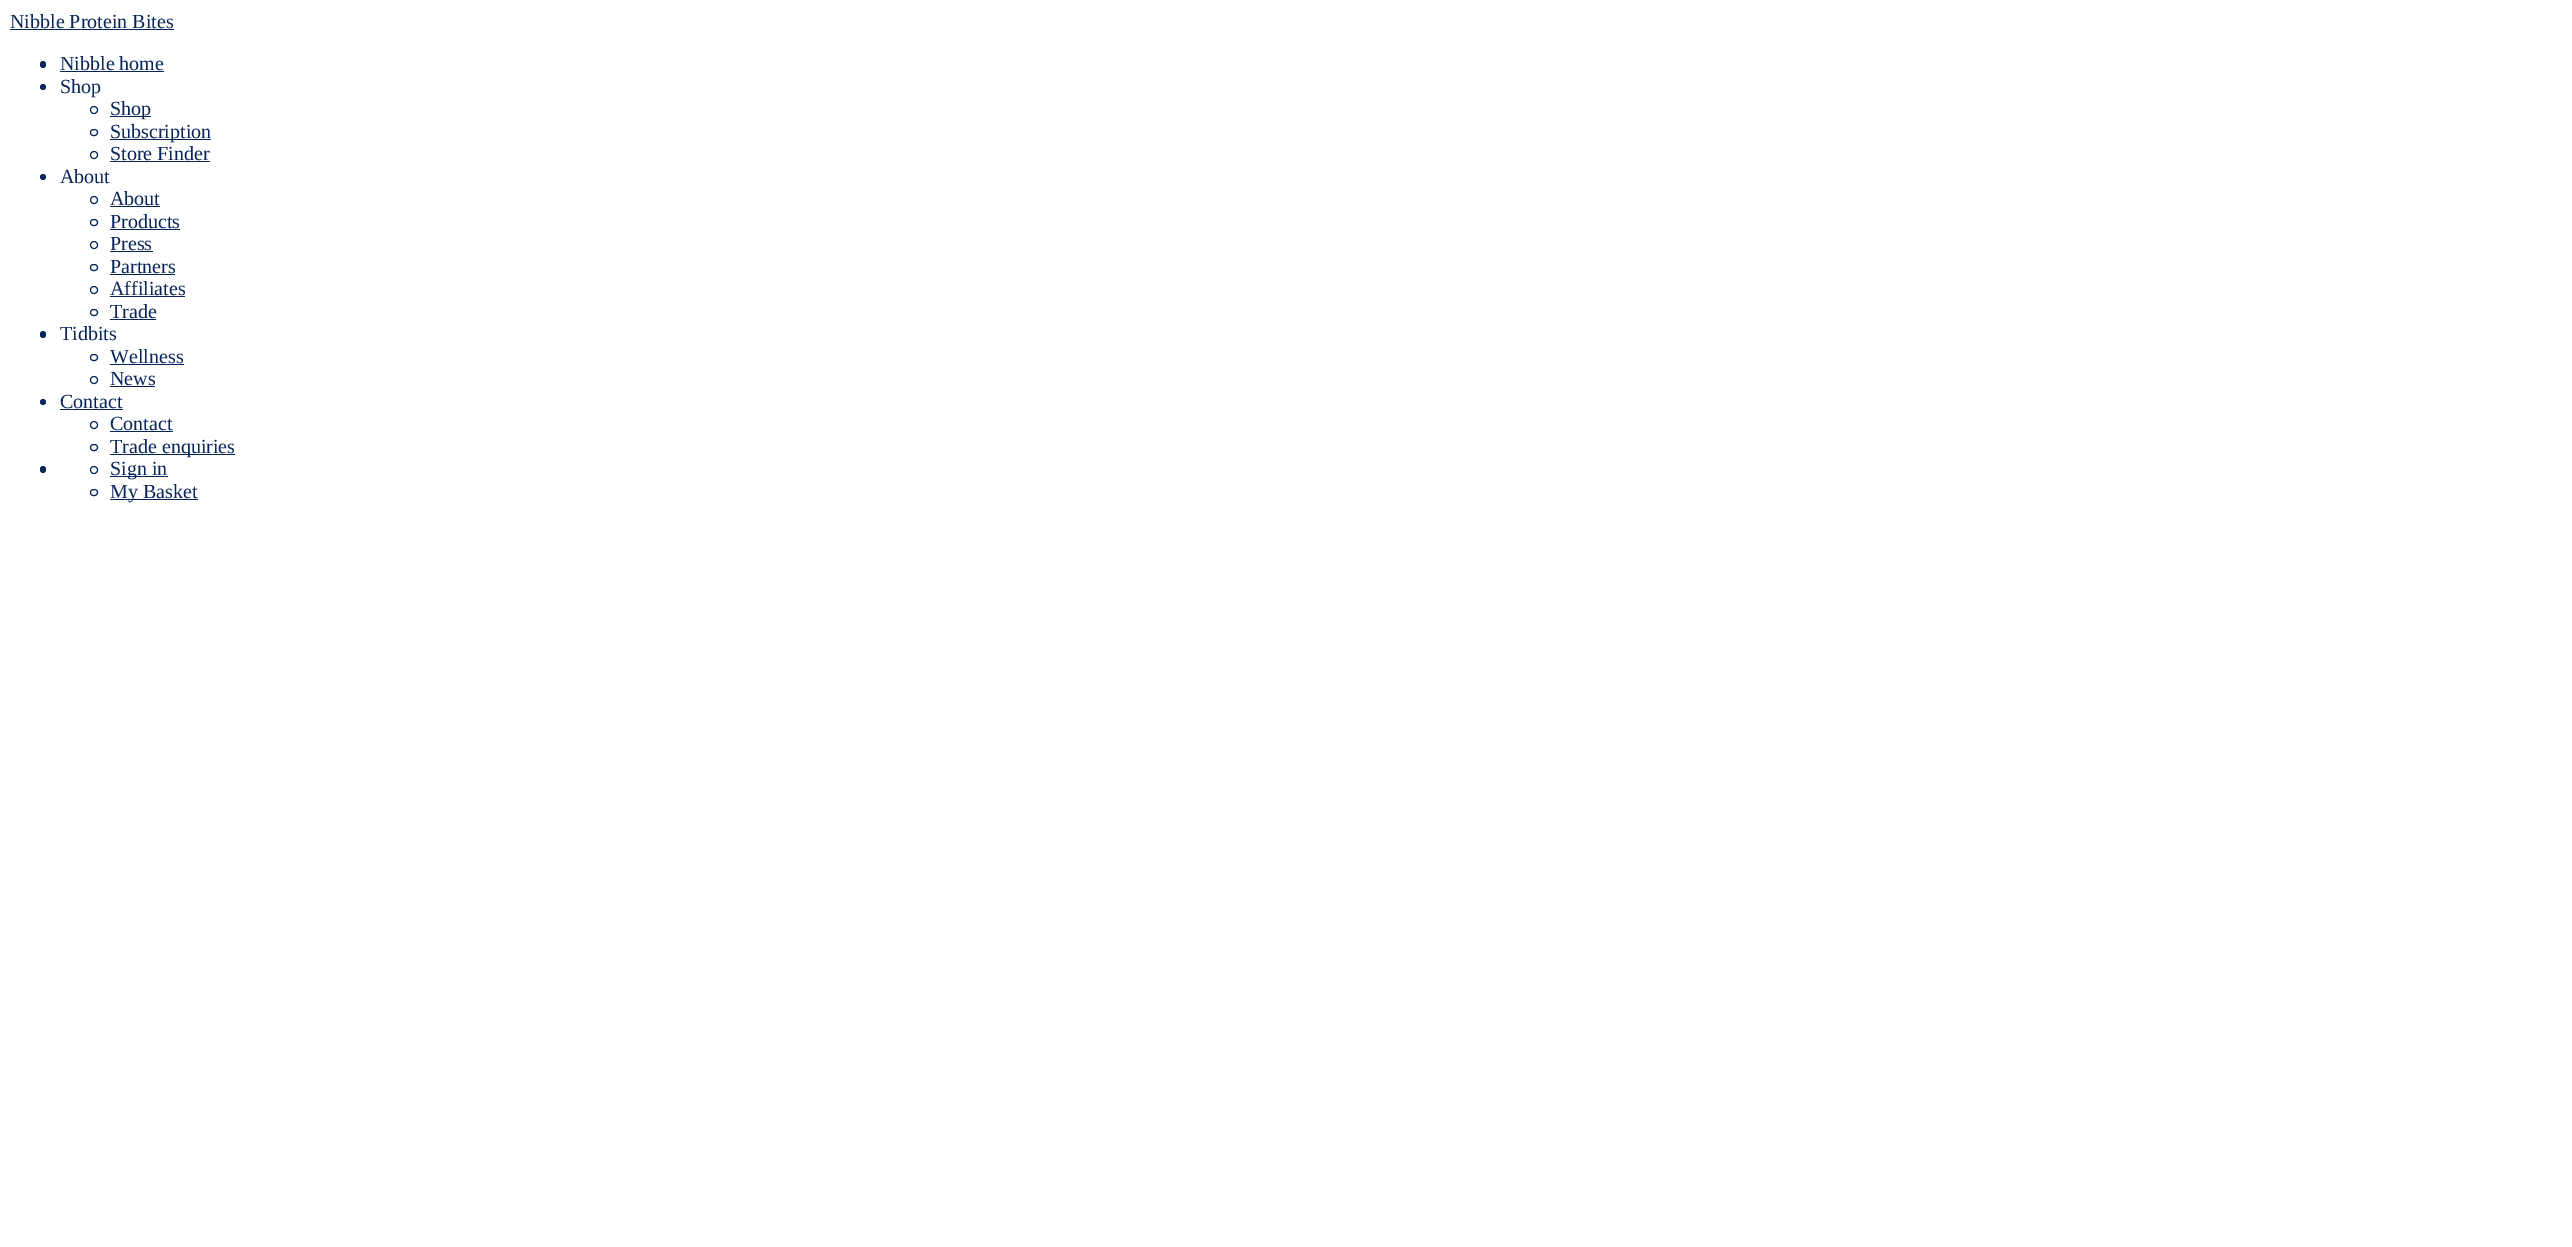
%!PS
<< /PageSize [2572 1247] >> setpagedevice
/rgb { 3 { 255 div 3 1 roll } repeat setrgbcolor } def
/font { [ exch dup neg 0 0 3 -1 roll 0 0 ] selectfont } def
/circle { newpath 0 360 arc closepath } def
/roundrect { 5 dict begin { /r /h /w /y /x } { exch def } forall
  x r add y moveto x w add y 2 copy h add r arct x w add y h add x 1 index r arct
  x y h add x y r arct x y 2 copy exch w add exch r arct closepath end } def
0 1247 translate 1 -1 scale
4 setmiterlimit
255 255 255 rgb
0 0 2572 1247 rectfill
8 37 89 rgb
10 29 164 1 rectfill
40 61 6 7 3 roundrect fill
60 71 104 1 rectfill
43 87 3 circle fill
94 110 3.5 circle stroke
110 116 41 1 rectfill
90.5 129.5 7 6 3 roundrect stroke
110 139 101 1 rectfill
94 155 3.5 circle stroke
110 161 100 1 rectfill
43 177 3 circle fill
94 200 3.5 circle stroke
110 206 50 1 rectfill
90.5 219.5 7 6 3 roundrect stroke
110 229 70 1 rectfill
94 245 3.5 circle stroke
110 251 43 1 rectfill
90.5 264.5 7 6 3 roundrect stroke
110 274 65 1 rectfill
94 290 3.5 circle stroke
110 296 75 1 rectfill
90.5 309.5 7 6 3 roundrect stroke
110 319 46 1 rectfill
40 331 6 7 3 roundrect fill
90.5 354.5 7 6 3 roundrect stroke
110 364 74 1 rectfill
94 380 3.5 circle stroke
110 386 45 1 rectfill
43 402 3 circle fill
60 409 63 1 rectfill
94 425 3.5 circle stroke
110 431 63 1 rectfill
90.5 444.5 7 6 3 roundrect stroke
110 454 125 1 rectfill
40 466 6 7 3 roundrect fill
94 470 3.5 circle stroke
110 476 58 1 rectfill
90.5 489.5 7 6 3 roundrect stroke
110 499 88 1 rectfill
/LiberationSerif-Regular 20 font
[
  [(Nibble Protein Bites) 10 28]
  [(Nibble home) 60 70]
  [(Shop) 60 93]
  [(Shop) 110 115]
  [(Subscription) 110 138]
  [(Store Finder) 110 160]
  [(About) 60 183]
  [(About) 110 205]
  [(Products) 110 228]
  [(Press) 110 250]
  [(Partners) 110 273]
  [(Affiliates) 110 295]
  [(Trade) 110 318]
  [(Tidbits) 60 340]
  [(Wellness) 110 363]
  [(News) 110 385]
  [(Contact) 60 408]
  [(Contact) 110 430]
  [(Trade enquiries) 110 453]
  [(Sign in) 110 475]
  [(My Basket) 110 498]
] { aload pop moveto show } forall
showpage
